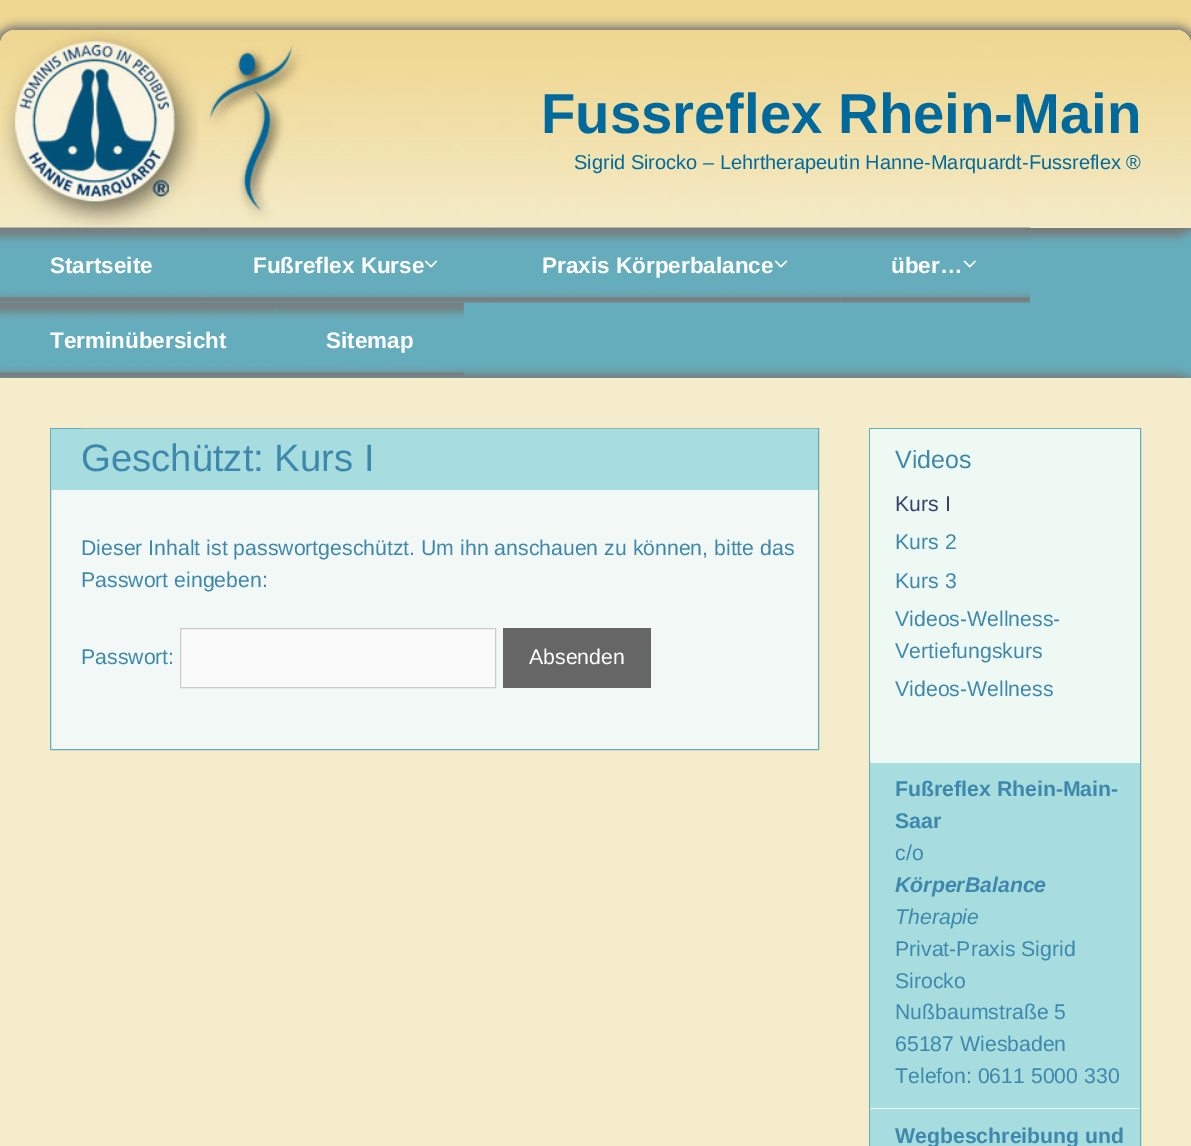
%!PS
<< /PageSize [1191 1146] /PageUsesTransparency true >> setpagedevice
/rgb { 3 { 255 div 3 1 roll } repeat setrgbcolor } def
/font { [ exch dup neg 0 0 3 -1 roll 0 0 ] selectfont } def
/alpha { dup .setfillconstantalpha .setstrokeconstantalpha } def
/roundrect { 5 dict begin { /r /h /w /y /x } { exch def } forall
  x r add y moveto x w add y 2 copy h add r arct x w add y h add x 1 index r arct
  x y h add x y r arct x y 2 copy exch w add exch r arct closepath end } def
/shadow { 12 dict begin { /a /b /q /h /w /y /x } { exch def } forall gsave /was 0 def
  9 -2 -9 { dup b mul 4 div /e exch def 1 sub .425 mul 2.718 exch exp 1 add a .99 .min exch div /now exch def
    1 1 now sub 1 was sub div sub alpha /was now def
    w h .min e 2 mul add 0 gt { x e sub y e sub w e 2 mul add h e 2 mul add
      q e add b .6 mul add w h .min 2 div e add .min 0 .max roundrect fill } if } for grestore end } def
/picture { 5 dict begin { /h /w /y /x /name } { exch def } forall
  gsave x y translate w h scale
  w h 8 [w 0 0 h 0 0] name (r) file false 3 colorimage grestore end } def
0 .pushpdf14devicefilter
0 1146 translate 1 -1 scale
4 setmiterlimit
255 255 255 rgb
0 0 1191 1146 rectfill
(img/1.rgb) 0 0 1191 45 picture
101 173 188 rgb
0 228 1191 150 rectfill
120 120 120 rgb
-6 26 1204 210 21 4.5 1 shadow
244 236 202 rgb
15 30 moveto 1176 30 lineto 1184.5 30 1191 36.5 1191 45 curveto 1191 228 lineto 0 228 lineto 0 45 lineto 0 36.5 6.5 30 15 30 curveto closepath fill
(img/2.rgb) 0 30 1191 198 picture
(img/3.rgb) 0 227 203 76 picture
(img/4.rgb) 202 227 290 76 picture
(img/5.rgb) 424 260 14 8 picture
(img/6.rgb) 491 227 351 76 picture
(img/5.rgb) 774 260 14 8 picture
(img/7.rgb) 841 227 189 76 picture
(img/8.rgb) 963 260 13 8 picture
120 120 120 rgb
-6 374 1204 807 21 4.5 1 shadow
(img/9.rgb) 0 302 277 76 picture
(img/10.rgb) 276 302 188 76 picture
244 236 202 rgb
0 378 1191 768 rectfill
242 248 246 rgb
51 490 767 259 rectfill
101 173 188 rgb
50.5 428.5 768 321 rectstroke
(img/11.rgb) 81 428 737 1 picture
167 221 223 rgb
51 429 767 61 rectfill
250 250 250 rgb
180.5 628.5 moveto 495.5 628.5 lineto 495.5 687.5 lineto 180.5 687.5 lineto closepath gsave fill grestore
204 204 204 rgb
stroke
102 102 102 rgb
503 628 148 60 rectfill
242 248 246 rgb
870 761 270 348 rectfill
101 173 188 rgb
869.5 428.5 271 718 rectstroke
[
  [870 429 270 332 238 249 244]
  [870 763 270 345 167 221 223]
  [870 1109 270 37 167 221 223]
] { aload pop rgb rectfill } forall
/LiberationSans-Bold 56.25 font
1 105 156 rgb
541 133 moveto (Fussreflex Rhein-Main) show
/LiberationSans-Regular 20 font
574 169 moveto (Sigrid Sirocko – Lehrtherapeutin Hanne-Marquardt-Fussreflex ®) show
/LiberationSans-Bold 22.5 font
255 255 255 rgb
[
  [(Startseite) 50 273]
  [(Fußreflex Kurse) 253 273]
  [(Praxis Körperbalance) 542 273]
  [(über…) 891 273]
  [(Terminübersicht) 50 348]
  [(Sitemap) 326 348]
] { aload pop moveto show } forall
/LiberationSans-Regular 38.25 font
61 136 172 rgb
81 471 moveto (Geschützt: Kurs I) show
/LiberationSans-Regular 21.25 font
[
  [(Dieser Inhalt ist passwortgeschützt. Um ihn anschauen zu können, bitte das) 81 555]
  [(Passwort eingeben:) 81 587]
  [(Passwort:) 81 664]
] { aload pop moveto show } forall
255 255 255 rgb
529 664 moveto (Absenden) show
/LiberationSans-Regular 25 font
61 136 172 rgb
895 468 moveto (Videos) show
/LiberationSans-Regular 21.25 font
55 66 111 rgb
895 511 moveto (Kurs I) show
61 136 172 rgb
[
  [(Kurs 2) 895 549]
  [(Kurs 3) 895 588]
  [(Videos-Wellness-) 895 626]
  [(Vertiefungskurs) 895 658]
  [(Videos-Wellness) 895 696]
] { aload pop moveto show } forall
/LiberationSans-Bold 21.25 font
895 796 moveto (Fußreflex Rhein-Main-) show
895 828 moveto (Saar) show
/LiberationSans-Regular 21.25 font
895 860 moveto (c/o) show
/LiberationSans-BoldItalic 21.25 font
895 892 moveto (KörperBalance) show
/LiberationSans-Italic 21.25 font
895 924 moveto (Therapie) show
/LiberationSans-Regular 21.25 font
[
  [(Privat-Praxis Sigrid) 895 956]
  [(Sirocko) 895 988]
  [(Nußbaumstraße 5) 895 1019]
  [(65187 Wiesbaden) 895 1051]
  [(Telefon: 0611 5000 330) 895 1083]
] { aload pop moveto show } forall
/LiberationSans-Bold 21.25 font
895 1143 moveto (Wegbeschreibung und) show
.poppdf14devicefilter showpage
